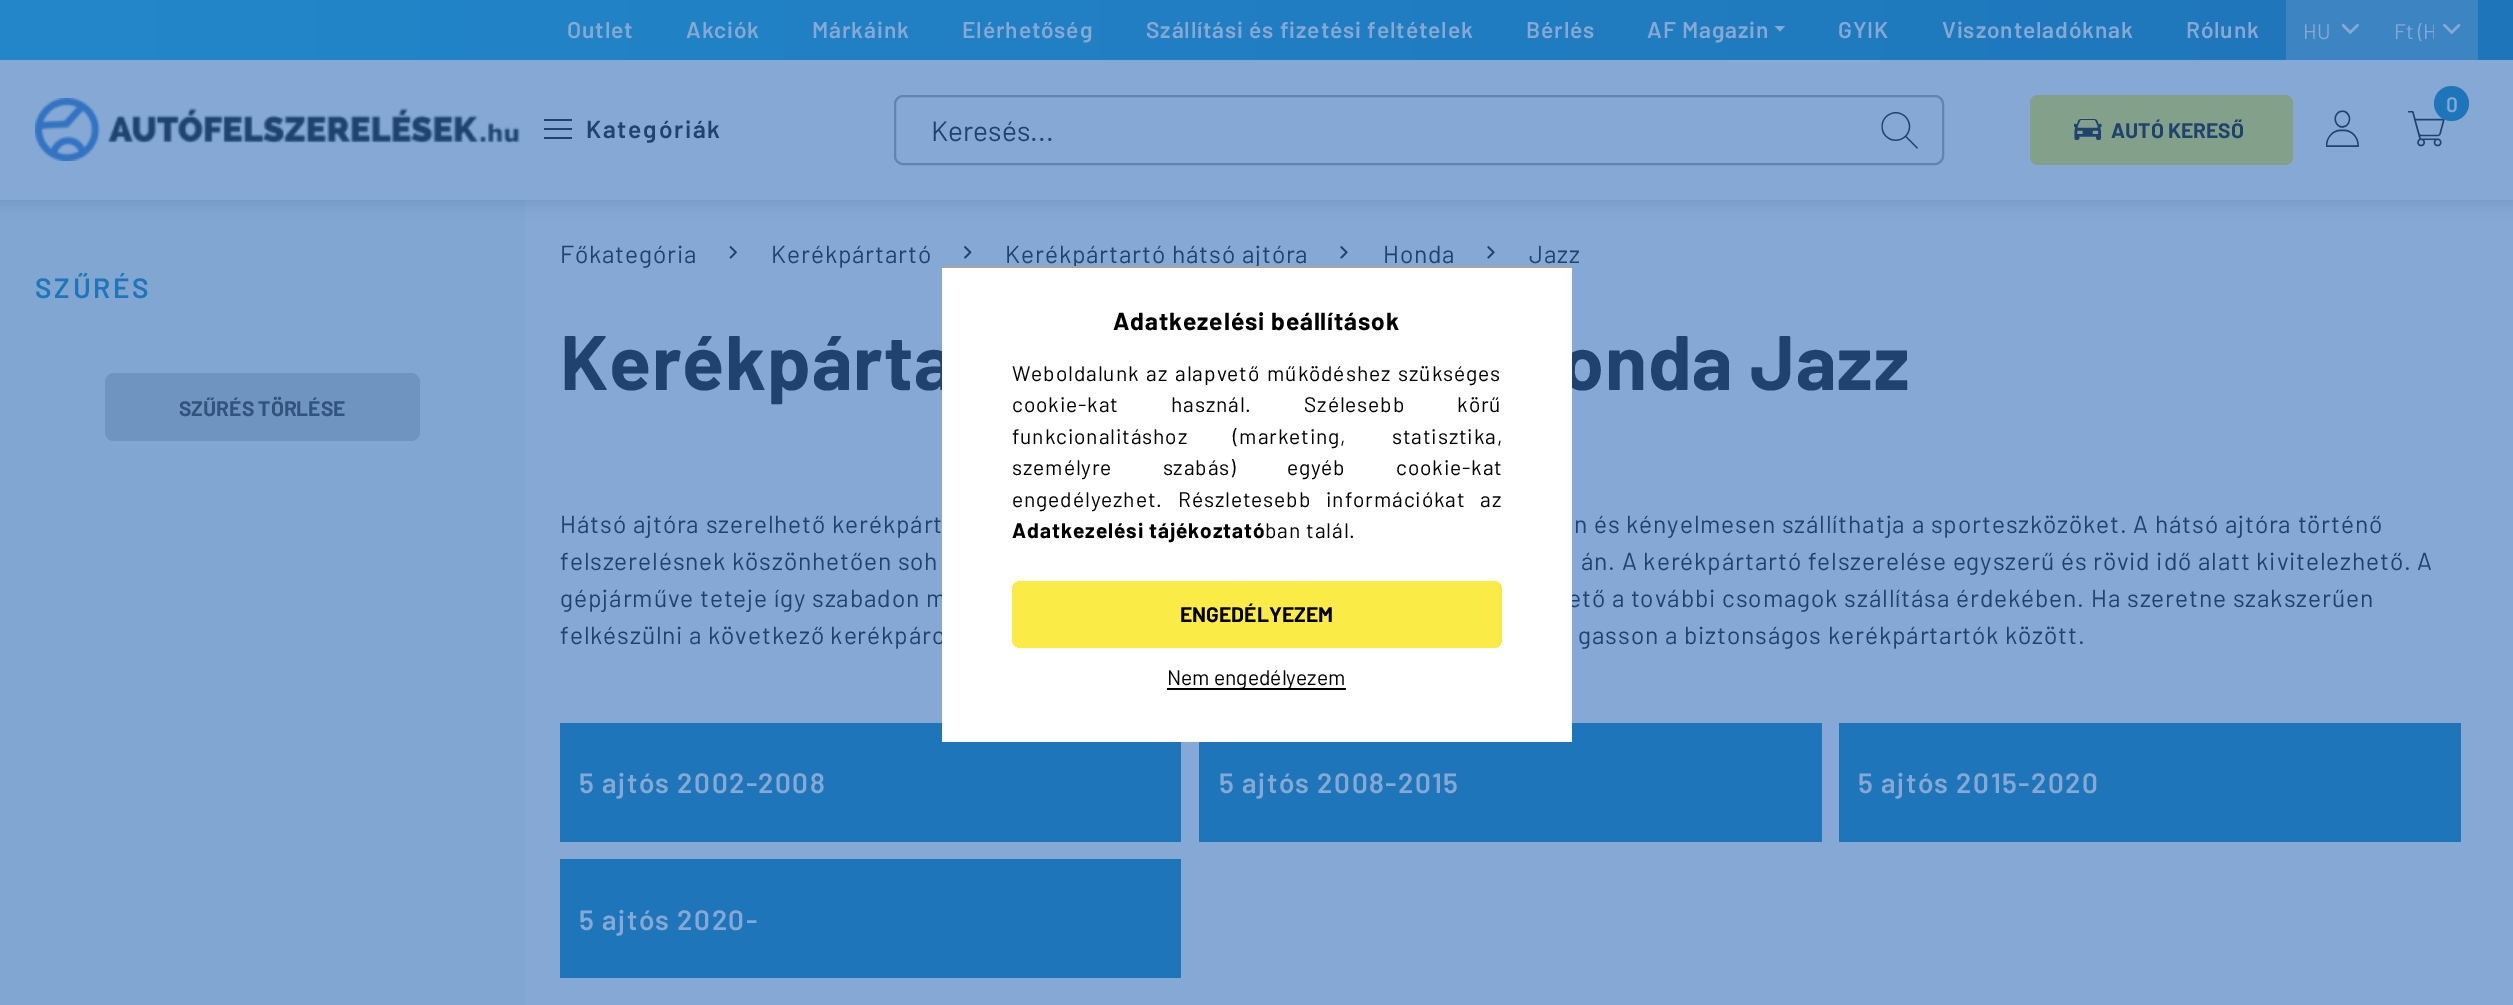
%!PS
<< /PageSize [2513 1005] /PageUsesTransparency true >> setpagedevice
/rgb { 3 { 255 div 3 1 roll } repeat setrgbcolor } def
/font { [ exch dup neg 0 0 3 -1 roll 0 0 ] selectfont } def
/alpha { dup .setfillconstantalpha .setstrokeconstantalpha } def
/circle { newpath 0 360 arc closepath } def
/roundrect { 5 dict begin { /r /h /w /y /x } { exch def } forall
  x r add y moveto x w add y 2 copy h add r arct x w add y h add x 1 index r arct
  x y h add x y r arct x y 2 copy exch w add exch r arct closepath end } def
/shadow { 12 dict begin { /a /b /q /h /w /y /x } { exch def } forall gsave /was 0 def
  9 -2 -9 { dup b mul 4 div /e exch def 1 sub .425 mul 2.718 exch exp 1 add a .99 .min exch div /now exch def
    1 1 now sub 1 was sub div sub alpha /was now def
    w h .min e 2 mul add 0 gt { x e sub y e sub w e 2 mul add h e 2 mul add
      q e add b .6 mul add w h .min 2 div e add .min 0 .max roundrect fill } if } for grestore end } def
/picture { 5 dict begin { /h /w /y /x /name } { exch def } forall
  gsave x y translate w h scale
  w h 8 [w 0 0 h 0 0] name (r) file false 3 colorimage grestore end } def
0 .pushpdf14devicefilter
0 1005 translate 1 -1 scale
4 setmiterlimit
133 169 212 rgb
0 0 2513 1005 rectfill
130 166 210 rgb
0 200 525 805 rectfill
gsave
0 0 moveto 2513 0 lineto 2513 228 lineto 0 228 lineto closepath 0 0 moveto 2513 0 lineto 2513 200 lineto 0 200 lineto closepath eoclip newpath
31 67 110 rgb
0 0 2513 200 0 9 0.22 shadow
grestore
gsave 0 0 moveto 2513 0 lineto 2513 60 lineto 0 60 lineto closepath clip newpath
<< /ShadingType 2 /ColorSpace /DeviceRGB /Coords [0 503 2513 503] /Extend [true true] /Function << /FunctionType 2 /Domain [0 1] /C0 [0.133 0.529 0.792] /C1 [0.122 0.459 0.729] /N 1 >> >> shfill grestore
gsave 2286 0 moveto 2478 0 lineto 2478 60 lineto 2286 60 lineto closepath clip newpath
<< /ShadingType 2 /ColorSpace /DeviceRGB /Coords [0 503 2513 503] /Extend [true true] /Function << /FunctionType 2 /Domain [0 1] /C0 [0.251 0.569 0.808] /C1 [0.239 0.518 0.761] /N 1 >> >> shfill grestore
133 169 212 rgb
1774.5 26 moveto 1785 26 lineto 1780 31.5 lineto closepath fill
(img/1.rgb) 2342 23 17 11 picture
(img/2.rgb) 2443 23 18 11 picture
(img/3.rgb) 35 98 485 63 picture
[
  [544 119 28 2 31 67 110]
  [544 128 28 2 31 67 110]
  [544 137 28 2 31 67 110]
] { aload pop rgb rectfill } forall
(img/4.rgb) 2408 111 37 36 picture
31 117 186 rgb
2451.5 103.5 17.5 circle fill
97 133 176 rgb
2 setlinewidth
895 96 1048 68 8 roundrect stroke
(img/5.rgb) 1881 112 37 37 picture
gsave 2030 95 263 70 9 roundrect clip newpath
<< /ShadingType 2 /ColorSpace /DeviceRGB /Coords [2030 130 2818 129] /Extend [true true] /Function << /FunctionType 3 /Domain [0 1] /Functions [<< /FunctionType 2 /Domain [0 1] /C0 [0.514 0.631 0.541] /C1 [0.514 0.631 0.541] /N 1 >> << /FunctionType 2 /Domain [0 1] /C0 [0.514 0.631 0.541] /C1 [0.122 0.459 0.729] /N 1 >> << /FunctionType 2 /Domain [0 1] /C0 [0.122 0.459 0.729] /C1 [0.122 0.459 0.729] /N 1 >>] /Bounds [0.33 0.67] /Encode [0 1 0 1 0 1] >> >> shfill grestore
(img/6.rgb) 2074 119 28 21 picture
(img/7.rgb) 2326 110 33 37 picture
112 148 192 rgb
105 373 315 68 9 roundrect fill
(img/8.rgb) 729 246 8 13 picture
(img/9.rgb) 964 246 8 13 picture
(img/10.rgb) 1340 246 8 13 picture
(img/10.rgb) 1487 246 8 13 picture
[
  [560 723 621 119 31 117 186]
  [1199 723 623 119 31 117 186]
  [1839 723 622 119 31 117 186]
  [560 859 621 119 31 117 186]
] { aload pop rgb rectfill } forall
/Barlow-SemiBold 22.75 font
133 169 212 rgb
567 38 moveto 0.88 0 (Outlet) ashow
686 38 moveto 0.88 0 (Akciók) ashow
812 38 moveto 0.88 0 (Márkáink) ashow
962 38 moveto 0.88 0 (Elérhetőség) ashow
1146 38 moveto 0.88 0 (Szállítási és fizetési feltételek) ashow
1526 38 moveto 0.88 0 (Bérlés) ashow
1647 38 moveto 0.88 0 (AF Magazin) ashow
1838 38 moveto 0.88 0 (GYIK) ashow
1942 38 moveto 0.88 0 (Viszonteladóknak) ashow
2186 38 moveto 0.88 0 (Rólunk) ashow
/Barlow-Regular 21 font
2303 39 moveto (HU) show
gsave
2394 14 40 32 rectclip
2394 39 moveto (Ft \(H) show
grestore
/Barlow-SemiBold 24.5 font
31 67 110 rgb
586 138 moveto 1.75 0 (Kategóriák) ashow
/Barlow-SemiBold 21 font
133 169 212 rgb
2446 112 moveto (0) show
/Barlow-Regular 28 font
31 67 110 rgb
931 141 moveto (Keresés...) show
/Barlow-Bold 21 font
2111 138 moveto (AUTÓ KERESŐ) show
/Barlow-SemiBold 28 font
31 117 186 rgb
35 298 moveto 2.75 0 (SZŰRÉS) ashow
/Barlow-Bold 21 font
49 83 126 rgb
179 416 moveto (SZŰRÉS TÖRLÉSE) show
/Barlow-Regular 24.5 font
31 67 110 rgb
560 263 moveto 0.88 0 (Főkategória) ashow
771 263 moveto 0.88 0 (Kerékpártartó) ashow
1005 263 moveto 0.88 0 (Kerékpártartó hátsó ajtóra) ashow
1383 263 moveto 0.88 0 (Honda) ashow
1529 263 moveto 0.88 0 (Jazz) ashow
/Barlow-Bold 77 font
560 390 moveto 0.88 0 (Kerékpárta) ashow
1561 390 moveto 0.88 0 (onda Jazz) ashow
/Barlow-Regular 24.5 font
560 533 moveto 0.88 0 (Hátsó ajtóra szerelhető kerékpárt) ashow
1574 533 moveto 0.88 0 (n és kényelmesen szállíthatja a sporteszközöket. A hátsó ajtóra történő) ashow
560 570 moveto 0.88 0 (felszerelésnek köszönhetően soh) ashow
1581 570 moveto 0.88 0 (án. A kerékpártartó felszerelése egyszerű és rövid idő alatt kivitelezhető. A) ashow
560 607 moveto 0.88 0 (gépjárműve teteje így szabadon m) ashow
1568 607 moveto 0.88 0 (ető a további csomagok szállítása érdekében. Ha szeretne szakszerűen) ashow
560 644 moveto 0.88 0 (felkészülni a következő kerékpáro) ashow
1578 644 moveto 0.88 0 (gasson a biztonságos kerékpártartók között.) ashow
/Barlow-SemiBold 28 font
133 169 212 rgb
579 793 moveto 1.4 0 (5 ajtós 2002-2008) ashow
1219 793 moveto 1.4 0 (5 ajtós 2008-2015) ashow
1858 793 moveto 1.4 0 (5 ajtós 2015-2020) ashow
579 930 moveto 1.4 0 (5 ajtós 2020-) ashow
255 255 255 rgb
942 268 630 474 rectfill
165 165 165 rgb
942 266 630 2 rectfill
/Barlow-Bold 24.5 font
0 0 0 rgb
1113 330 moveto 0.88 0 (Adatkezelési beállítások) ashow
/Barlow-Regular 21 font
1012 381 moveto 2 0 32 0.88 0 (Weboldalunk az alapvető működéshez szükséges) awidthshow
1012 412 moveto 47 0 32 0.88 0 (cookie-kat használ. Szélesebb körű) awidthshow
1012 444 moveto 40 0 32 0.88 0 (funkcionalitáshoz \(marketing, statisztika,) awidthshow
1012 475 moveto 45 0 32 0.88 0 (személyre szabás\) egyéb cookie-kat) awidthshow
1012 507 moveto 10 0 32 0.88 0 (engedélyezhet. Részletesebb információkat az) awidthshow
/Barlow-Bold 21 font
1012 538 moveto 0.88 0 (Adatkezelési tájékoztató) ashow
/Barlow-Regular 21 font
1265 538 moveto 0.88 0 (ban talál.) ashow
gsave 1012 581 490 67 9 roundrect clip newpath
<< /ShadingType 2 /ColorSpace /DeviceRGB /Coords [1012 614 2482 614] /Extend [true true] /Function << /FunctionType 3 /Domain [0 1] /Functions [<< /FunctionType 2 /Domain [0 1] /C0 [0.98 0.922 0.275] /C1 [0.98 0.922 0.275] /N 1 >> << /FunctionType 2 /Domain [0 1] /C0 [0.98 0.922 0.275] /C1 [0 0.49 0.737] /N 1 >> << /FunctionType 2 /Domain [0 1] /C0 [0 0.49 0.737] /C1 [0 0.49 0.737] /N 1 >>] /Bounds [0.33 0.67] /Encode [0 1 0 1 0 1] >> >> shfill grestore
/Barlow-Bold 21 font
1180 622 moveto (ENGEDÉLYEZEM) show
1167 688 179 2 rectfill
/Barlow-Regular 21 font
1167 685 moveto (Nem engedélyezem) show
.poppdf14devicefilter showpage
